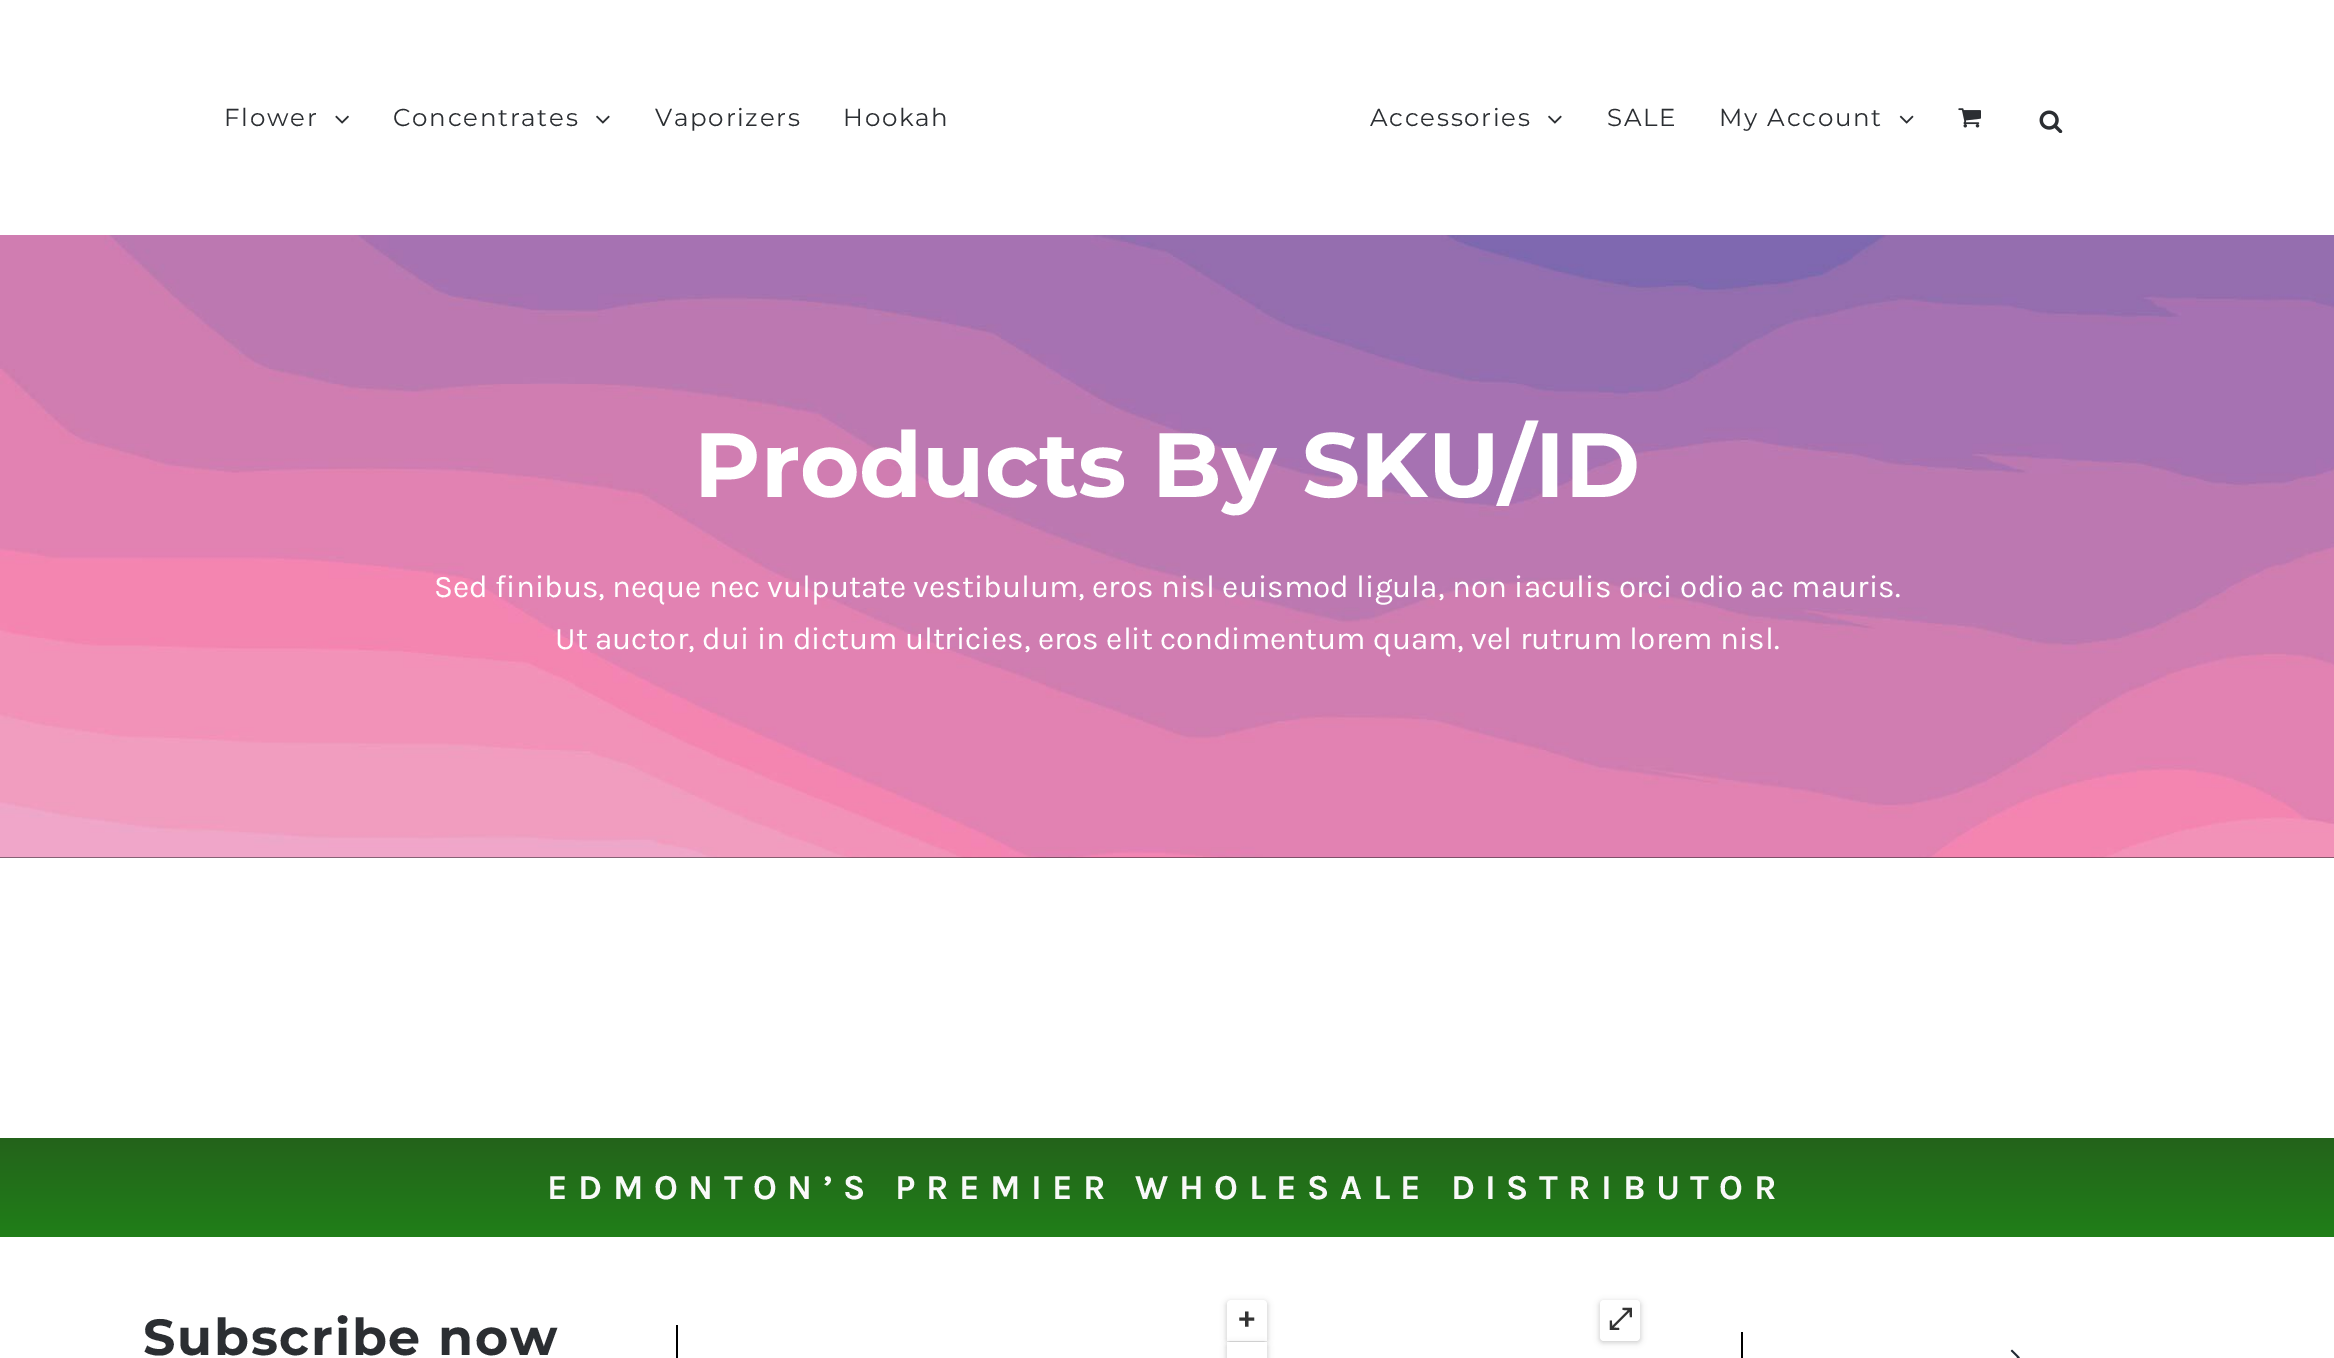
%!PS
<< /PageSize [2334 1358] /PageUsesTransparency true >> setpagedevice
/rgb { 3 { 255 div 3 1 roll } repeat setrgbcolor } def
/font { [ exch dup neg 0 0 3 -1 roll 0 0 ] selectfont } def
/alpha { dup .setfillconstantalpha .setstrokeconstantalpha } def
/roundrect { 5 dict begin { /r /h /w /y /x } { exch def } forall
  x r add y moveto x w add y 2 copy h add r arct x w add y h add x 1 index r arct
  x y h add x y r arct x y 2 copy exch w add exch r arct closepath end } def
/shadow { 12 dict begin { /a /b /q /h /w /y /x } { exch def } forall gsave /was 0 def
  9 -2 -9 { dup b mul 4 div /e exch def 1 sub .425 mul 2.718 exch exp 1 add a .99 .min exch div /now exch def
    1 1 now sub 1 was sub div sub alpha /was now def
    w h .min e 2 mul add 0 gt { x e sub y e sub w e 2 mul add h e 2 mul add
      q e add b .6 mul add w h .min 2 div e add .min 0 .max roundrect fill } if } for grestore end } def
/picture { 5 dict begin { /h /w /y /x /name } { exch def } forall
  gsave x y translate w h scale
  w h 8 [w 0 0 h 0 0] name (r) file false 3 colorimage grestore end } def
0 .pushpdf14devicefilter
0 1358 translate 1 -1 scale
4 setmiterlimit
255 255 255 rgb
0 0 2334 1358 rectfill
(img/1.rgb) 335 115 14 9 picture
(img/2.rgb) 596 115 14 9 picture
(img/2.rgb) 1548 115 14 9 picture
(img/3.rgb) 1899 115 15 9 picture
(img/4.rgb) 1958 108 23 20 picture
(img/5.rgb) 2039 110 24 23 picture
28 30 33 rgb
0 857 2334 1 rectfill
(img/6.rgb) 0 235 2334 623 picture
gsave 0 1138 moveto 2334 1138 lineto 2334 1237 lineto 0 1237 lineto closepath clip newpath
<< /ShadingType 2 /ColorSpace /DeviceRGB /Coords [1167 1137 1167 1237] /Extend [true true] /Function << /FunctionType 2 /Domain [0 1] /C0 [0.141 0.388 0.106] /C1 [0.125 0.498 0.094] /N 1 >> >> shfill grestore
0 0 0 rgb
676 1325 2 33 rectfill
66 66 66 rgb
1225 1300 44 44 5 2.5 0.16 shadow
1227 1302 40 40 4 1 0.08 shadow
255 255 255 rgb
1231 1300 moveto 1263 1300 lineto 1265 1300 1267 1302 1267 1304 curveto 1267 1341 lineto 1227 1341 lineto 1227 1304 lineto 1227 1302 1229 1300 1231 1300 curveto closepath fill
66 66 66 rgb
1225 1342 44 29 5 2.5 0.16 shadow
1227 1344 40 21 4 1 0.08 shadow
255 255 255 rgb
1227 1342 40 16 rectfill
66 66 66 rgb
1598 1300 44 44 5 2.5 0.16 shadow
1600 1302 40 40 4 1 0.08 shadow
255 255 255 rgb
1600 1300 40 41 4 roundrect fill
0 0 0 rgb
1741 1332 2 26 rectfill
(img/7.rgb) 2010 1349 10 9 picture
/Montserrat-Regular 24.5 font
43 46 50 rgb
224 126 moveto 1.75 0 (Flower) ashow
393 126 moveto 1.75 0 (Concentrates) ashow
655 126 moveto 1.75 0 (Vaporizers) ashow
843 126 moveto 1.75 0 (Hookah) ashow
1370 126 moveto 1.75 0 (Accessories) ashow
1607 126 moveto 1.75 0 (SALE) ashow
1719 126 moveto 1.75 0 (My Account) ashow
/Montserrat-Bold 91 font
255 255 255 rgb
694 497 moveto (Products By SKU/ID) show
/Karla-Regular 31.5 font
434 597 moveto (Sed finibus, neque nec vulputate vestibulum, eros nisl euismod ligula, non iaculis orci odio ac mauris.) show
555 649 moveto (Ut auctor, dui in dictum ultricies, eros elit condimentum quam, vel rutrum lorem nisl.) show
/Karla-Bold 35 font
249 249 249 rgb
547 1199 moveto 10.5 0 (EDMONTON’S PREMIER WHOLESALE DISTRIBUTOR) ashow
/Montserrat-Bold 50.75 font
43 46 50 rgb
143 1355 moveto 1.75 0 (Subscribe now) ashow
/LiberationSans-Bold 30 font
51 51 51 rgb
1238 1329 moveto (+) show
/FreeSerif-Bold 30 font
1608 1329 moveto (⤢) show
.poppdf14devicefilter showpage
